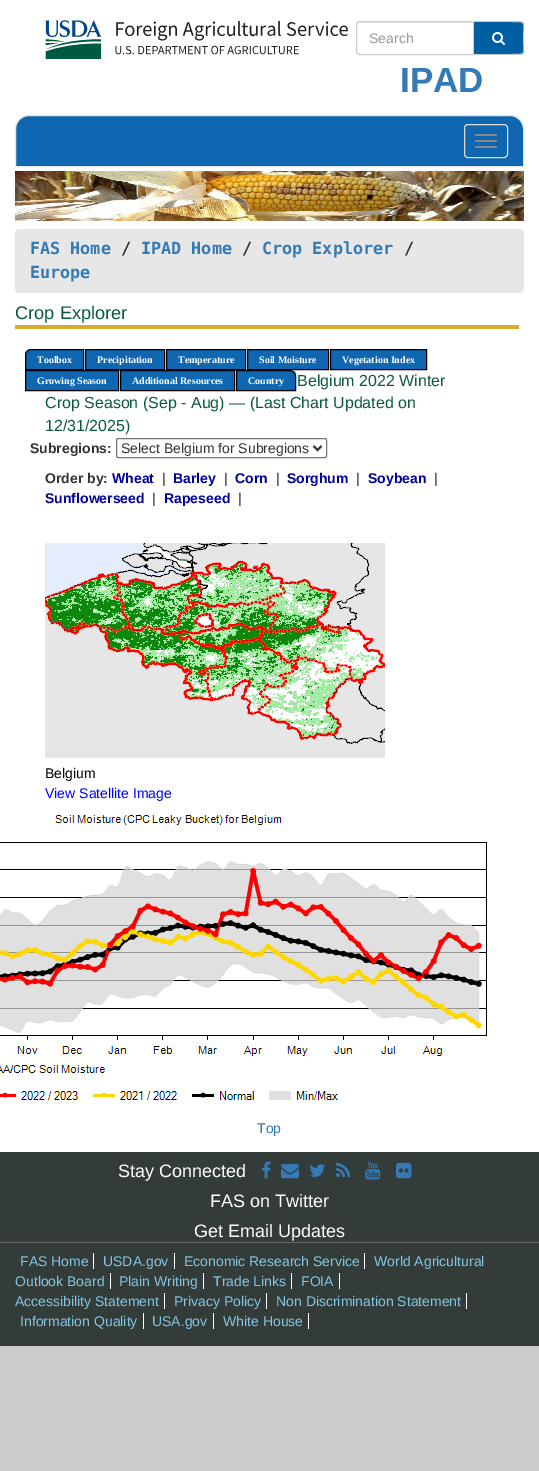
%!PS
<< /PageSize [539 1471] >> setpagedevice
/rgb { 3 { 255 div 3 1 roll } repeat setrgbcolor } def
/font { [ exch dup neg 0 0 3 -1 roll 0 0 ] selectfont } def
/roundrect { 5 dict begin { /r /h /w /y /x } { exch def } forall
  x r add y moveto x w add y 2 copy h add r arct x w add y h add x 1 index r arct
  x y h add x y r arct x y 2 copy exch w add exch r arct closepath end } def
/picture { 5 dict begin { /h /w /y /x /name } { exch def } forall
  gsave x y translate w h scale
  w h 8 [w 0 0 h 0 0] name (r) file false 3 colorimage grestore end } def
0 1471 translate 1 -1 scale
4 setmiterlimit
204 204 204 rgb
0 0 539 1471 rectfill
255 255 255 rgb
0 0 539 1152 rectfill
(img/1.rgb) 45 20 303 39 picture
236 236 236 rgb
360 23 moveto 473 23 lineto 473 22 lineto 360 22 lineto 358 22 357 23 357 25 curveto 357 26 lineto 357 24 358 23 360 23 curveto closepath fill
204 204 204 rgb
360 21.5 moveto 473.5 21.5 lineto 473.5 54.5 lineto 360 54.5 lineto 358 54.5 356.5 53 356.5 51 curveto 356.5 25 lineto 356.5 23 358 21.5 360 21.5 curveto closepath stroke
0 94 162 rgb
474 21 moveto 520 21 lineto 522 21 524 23 524 25 curveto 524 51 lineto 524 53 522 55 520 55 curveto 474 55 lineto closepath fill
204 204 204 rgb
474 21 moveto 520 21 lineto 522 21 524 23 524 25 curveto 524 51 lineto 524 53 522 55 520 55 curveto 474 55 lineto closepath 474 22 moveto 512 22 lineto 527 22 523 22 523 38 curveto 523 54 527 54 512 54 curveto 474 54 lineto closepath eofill
(img/2.rgb) 492 32 13 13 picture
14 103 176 rgb
29 115.5 moveto 510 115.5 lineto 517.5 115.5 523.5 121.5 523.5 129 curveto 523.5 166.5 lineto 15.5 166.5 lineto 15.5 129 lineto 15.5 121.5 21.5 115.5 29 115.5 curveto closepath gsave fill grestore
231 231 231 rgb
stroke
221 221 221 rgb
464.5 124.5 43 33 3.5 roundrect stroke
136 136 136 rgb
475 134 22 2 1 roundrect fill
475 140 22 2 1 roundrect fill
475 146 22 2 1 roundrect fill
(img/3.rgb) 15 171 509 50 picture
231 231 231 rgb
15 229 509 64 4 roundrect fill
216 171 45 rgb
15 325 504 4 rectfill
14 103 176 rgb
31 349.5 moveto 83.5 349.5 lineto 83.5 369.5 lineto 25.5 369.5 lineto 25.5 355 lineto 25.5 352 28 349.5 31 349.5 curveto closepath gsave fill grestore
0 0 0 rgb
stroke
14 103 176 rgb
85.5 349.5 moveto 164.5 349.5 lineto 164.5 369.5 lineto 85.5 369.5 lineto closepath gsave fill grestore
0 0 0 rgb
stroke
14 103 176 rgb
166.5 349.5 moveto 245.5 349.5 lineto 245.5 369.5 lineto 166.5 369.5 lineto closepath gsave fill grestore
0 0 0 rgb
stroke
14 103 176 rgb
247.5 349.5 moveto 328.5 349.5 lineto 328.5 369.5 lineto 247.5 369.5 lineto closepath gsave fill grestore
0 0 0 rgb
stroke
14 103 176 rgb
330.5 349.5 moveto 426.5 349.5 lineto 426.5 369.5 lineto 330.5 369.5 lineto closepath gsave fill grestore
0 0 0 rgb
stroke
14 103 176 rgb
25.5 370.5 moveto 118.5 370.5 lineto 118.5 390.5 lineto 25.5 390.5 lineto closepath gsave fill grestore
0 0 0 rgb
stroke
14 103 176 rgb
120.5 370.5 moveto 234.5 370.5 lineto 234.5 390.5 lineto 120.5 390.5 lineto closepath gsave fill grestore
0 0 0 rgb
stroke
200 200 200 rgb
236 370 moveto 291 370 lineto 294.5 370 297 372.5 297 376 curveto 297 391 lineto 236 391 lineto closepath fill
255 255 255 rgb
296 373 1 18 rectfill
14 103 176 rgb
236.5 370.5 moveto 290 370.5 lineto 293 370.5 295.5 373 295.5 376 curveto 295.5 390.5 lineto 236.5 390.5 lineto closepath gsave fill grestore
0 0 0 rgb
stroke
118 118 118 rgb
116.5 438.5 210 19 1.5 roundrect stroke
51 51 51 rgb
2 setlinewidth
313.5 446 moveto 317.5 450 lineto 321.5 446 lineto stroke
(img/4.rgb) 45 543 340 215 picture
(img/5.rgb) 0 815 487 285 picture
52 60 57 rgb
0 1152 539 90 rectfill
(img/6.rgb) 261 1161 10 18 picture
(img/7.rgb) 281 1164 18 15 picture
(img/8.rgb) 309 1164 17 13 picture
(img/9.rgb) 336 1162 15 15 picture
(img/10.rgb) 365 1161 16 19 picture
(img/11.rgb) 396 1162 16 17 picture
[
  [0 1243 539 103 52 60 57]
  [0 1242 539 1 102 102 102]
  [93 1253 1 16 255 255 255]
  [174 1253 1 16 255 255 255]
  [364 1253 1 16 255 255 255]
  [110 1273 1 16 255 255 255]
  [203 1273 1 16 255 255 255]
  [291 1273 1 16 255 255 255]
  [339 1273 1 16 255 255 255]
  [164 1293 1 16 255 255 255]
  [266 1293 1 16 255 255 255]
  [466 1293 1 16 255 255 255]
  [143 1313 1 16 255 255 255]
  [213 1313 1 16 255 255 255]
  [308 1313 1 16 255 255 255]
] { aload pop rgb rectfill } forall
/LiberationSans-Regular 14 font
153 153 153 rgb
369 43 moveto (Search) show
/LiberationSans-Bold 35 font
51 122 183 rgb
400 92 moveto (IPAD) show
/DejaVuSansMono-Bold 16.75 font
30 254 moveto (FAS Home) show
51 51 51 rgb
121 254 moveto (/) show
51 122 183 rgb
141 254 moveto (IPAD Home) show
51 51 51 rgb
242 254 moveto (/) show
51 122 183 rgb
262 254 moveto (Crop Explorer) show
51 51 51 rgb
404 254 moveto (/) show
51 122 183 rgb
30 278 moveto (Europe) show
/LiberationSans-Regular 18.25 font
11 89 65 rgb
15 319 moveto (Crop Explorer) show
/LiberationSerif-Bold 10 font
255 255 255 rgb
[
  [(Toolbox) 37 363]
  [(Precipitation) 97 363]
  [(Temperature) 178 363]
  [(Soil Moisture) 259 363]
  [(Vegetation Index) 342 363]
  [(Growing Season) 37 384]
  [(Additional Resources) 132 384]
  [(Country) 248 384]
] { aload pop moveto show } forall
/LiberationSans-Regular 16 font
11 89 65 rgb
[
  [(Belgium 2022 Winter) 297 386]
  [(Crop Season \(Sep - Aug\) — \(Last Chart Updated on) 45 408]
  [(12/31/2025\)) 45 431]
] { aload pop moveto show } forall
/LiberationSans-Bold 14 font
51 51 51 rgb
30 453 moveto (Subregions:) show
/LiberationSans-Regular 14 font
121 453 moveto (Select Belgium for Subregions) show
/LiberationSans-Bold 14 font
45 483 moveto (Order by:) show
0 0 153 rgb
112 483 moveto (Wheat) show
/LiberationSans-Regular 14 font
51 51 51 rgb
162 483 moveto (|) show
/LiberationSans-Bold 14 font
0 0 153 rgb
173 483 moveto (Barley) show
/LiberationSans-Regular 14 font
51 51 51 rgb
224 483 moveto (|) show
/LiberationSans-Bold 14 font
0 0 153 rgb
235 483 moveto (Corn) show
/LiberationSans-Regular 14 font
51 51 51 rgb
276 483 moveto (|) show
/LiberationSans-Bold 14 font
0 0 153 rgb
287 483 moveto (Sorghum) show
/LiberationSans-Regular 14 font
51 51 51 rgb
356 483 moveto (|) show
/LiberationSans-Bold 14 font
0 0 153 rgb
368 483 moveto (Soybean) show
/LiberationSans-Regular 14 font
51 51 51 rgb
434 483 moveto (|) show
/LiberationSans-Bold 14 font
0 0 153 rgb
45 503 moveto (Sunflowerseed) show
/LiberationSans-Regular 14 font
51 51 51 rgb
152 503 moveto (|) show
/LiberationSans-Bold 14 font
0 0 153 rgb
164 503 moveto (Rapeseed) show
/LiberationSans-Regular 14 font
51 51 51 rgb
238 503 moveto (|) show
0 0 0 rgb
45 778 moveto (Belgium) show
0 0 255 rgb
45 798 moveto (View Satellite Image) show
51 122 183 rgb
257 1133 moveto (Top) show
/LiberationSans-Regular 18 font
255 255 255 rgb
[
  [(Stay Connected) 118 1177]
  [(FAS on Twitter) 210 1207]
  [(Get Email Updates) 194 1237]
] { aload pop moveto show } forall
/LiberationSans-Regular 14 font
129 198 227 rgb
[
  [(FAS Home) 20 1266]
  [(USDA.gov) 103 1266]
  [(Economic Research Service) 184 1266]
  [(World Agricultural) 374 1266]
  [(Outlook Board) 15 1286]
  [(Plain Writing) 119 1286]
  [(Trade Links) 213 1286]
  [(FOIA) 301 1286]
  [(Accessibility Statement) 15 1306]
  [(Privacy Policy) 174 1306]
  [(Non Discrimination Statement) 276 1306]
  [(Information Quality) 20 1326]
  [(USA.gov) 152 1326]
  [(White House) 223 1326]
] { aload pop moveto show } forall
showpage
